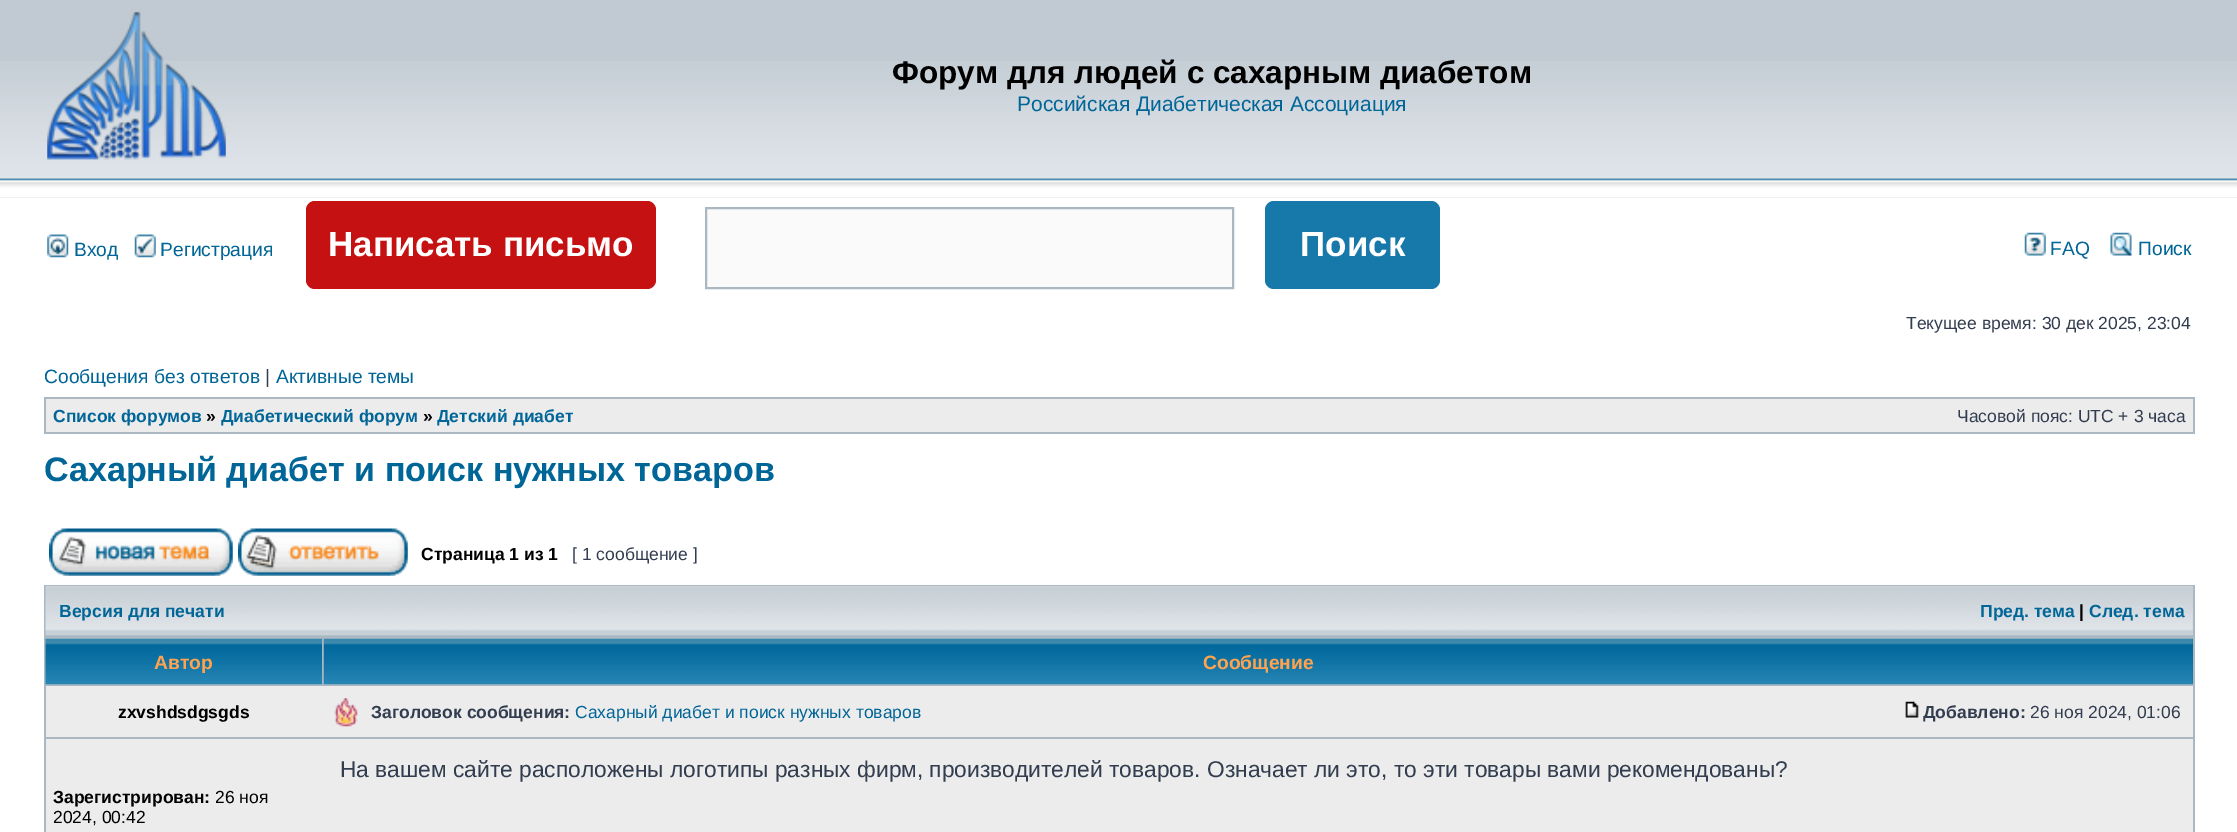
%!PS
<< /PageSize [2237 832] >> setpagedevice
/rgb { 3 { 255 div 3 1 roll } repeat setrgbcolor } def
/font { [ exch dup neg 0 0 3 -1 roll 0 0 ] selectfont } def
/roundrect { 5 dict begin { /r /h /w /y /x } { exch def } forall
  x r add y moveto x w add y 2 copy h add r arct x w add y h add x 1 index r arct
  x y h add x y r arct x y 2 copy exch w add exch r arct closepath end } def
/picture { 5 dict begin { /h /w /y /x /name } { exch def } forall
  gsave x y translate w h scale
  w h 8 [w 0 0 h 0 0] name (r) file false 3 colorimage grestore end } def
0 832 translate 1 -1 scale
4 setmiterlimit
255 255 255 rgb
0 0 2237 832 rectfill
193 202 210 rgb
0 0 2237 198 rectfill
(img/1.rgb) 0 61 2237 137 picture
(img/2.rgb) 47 11 179 149 picture
(img/3.rgb) 47 234 22 24 picture
(img/4.rgb) 134 234 22 24 picture
197 17 17 rgb
306 201 350 88 9 roundrect fill
250 250 250 rgb
706 208 moveto 1233 208 lineto 1233 288 lineto 706 288 lineto closepath gsave fill grestore
169 184 194 rgb
2 setlinewidth
stroke
22 121 170 rgb
1265 201 175 88 9 roundrect fill
(img/5.rgb) 2024 232 22 24 picture
(img/6.rgb) 2110 232 22 24 picture
169 184 194 rgb
44 397 2151 37 rectfill
236 236 236 rgb
46 399 2147 33 rectfill
(img/7.rgb) 49 528 184 48 picture
(img/8.rgb) 238 528 170 48 picture
169 184 194 rgb
44 585 2151 247 rectfill
199 208 215 rgb
46 586 2147 49 rectfill
(img/9.rgb) 45 586 2148 50 picture
(img/10.rgb) 45 638 277 47 picture
(img/11.rgb) 323 638 1870 47 picture
236 236 236 rgb
46 686 2147 51 rectfill
(img/12.rgb) 334 698 24 29 picture
(img/13.rgb) 1905 701 14 17 picture
46 739 2147 93 rectfill
/LiberationSans-Bold 31.5 font
0 0 0 rgb
892 83 moveto (Форум для людей с сахарным диабетом) show
/LiberationSans-Regular 21 font
0 101 151 rgb
1017 111 moveto (Российская Диабетическая Ассоциация) show
/LiberationSans-Regular 19.25 font
74 256 moveto (Вход) show
160 256 moveto (Регистрация) show
/LiberationSans-Bold 35 font
255 255 255 rgb
328 256 moveto (Написать письмо) show
1300 256 moveto (Поиск) show
/LiberationSans-Regular 19.25 font
0 101 151 rgb
2050 255 moveto (FAQ) show
2138 255 moveto (Поиск) show
/LiberationSans-Regular 17.5 font
50 61 79 rgb
1906 329 moveto (Текущее время: 30 дек 2025, 23:04) show
/LiberationSans-Regular 19.25 font
0 101 151 rgb
44 383 moveto (Сообщения без ответов) show
50 61 79 rgb
265 383 moveto (|) show
0 101 151 rgb
276 383 moveto (Активные темы) show
/LiberationSans-Bold 17.5 font
53 422 moveto (Список форумов) show
0 0 0 rgb
206 422 moveto (») show
0 101 151 rgb
221 422 moveto (Диабетический форум) show
0 0 0 rgb
423 422 moveto (») show
0 101 151 rgb
437 422 moveto (Детский диабет) show
/LiberationSans-Regular 17.5 font
50 61 79 rgb
1957 422 moveto (Часовой пояс: UTC + 3 часа) show
/LiberationSans-Bold 34.1 font
0 101 151 rgb
44 481 moveto (Сахарный диабет и поиск нужных товаров) show
/LiberationSans-Bold 17.5 font
0 0 0 rgb
421 560 moveto (Страница 1 из 1) show
/LiberationSans-Regular 17.5 font
50 61 79 rgb
572 560 moveto ([ 1 сообщение ]) show
/LiberationSans-Bold 17.5 font
0 101 151 rgb
59 617 moveto (Версия для печати) show
1980 617 moveto (Пред. тема) show
0 0 0 rgb
2079 617 moveto (|) show
0 101 151 rgb
2089 617 moveto (След. тема) show
/LiberationSans-Bold 19.25 font
255 163 79 rgb
154 669 moveto (Автор) show
1203 669 moveto (Сообщение) show
/LiberationSans-Bold 17.5 font
0 0 0 rgb
118 718 moveto (zxvshdsdgsgds) show
50 61 79 rgb
371 718 moveto (Заголовок сообщения:) show
/LiberationSans-Regular 17.5 font
0 101 151 rgb
575 718 moveto (Сахарный диабет и поиск нужных товаров) show
/LiberationSans-Bold 17.5 font
50 61 79 rgb
1923 718 moveto (Добавлено:) show
/LiberationSans-Regular 17.5 font
2030 718 moveto (26 ноя 2024, 01:06) show
/LiberationSans-Regular 22.75 font
340 777 moveto (На вашем сайте расположены логотипы разных фирм, производителей товаров. Означает ли это, то эти товары вами рекомендованы?) show
/LiberationSans-Bold 17.5 font
0 0 0 rgb
53 803 moveto (Зарегистрирован:) show
/LiberationSans-Regular 17.5 font
215 803 moveto (26 ноя) show
53 823 moveto (2024, 00:42) show
showpage
